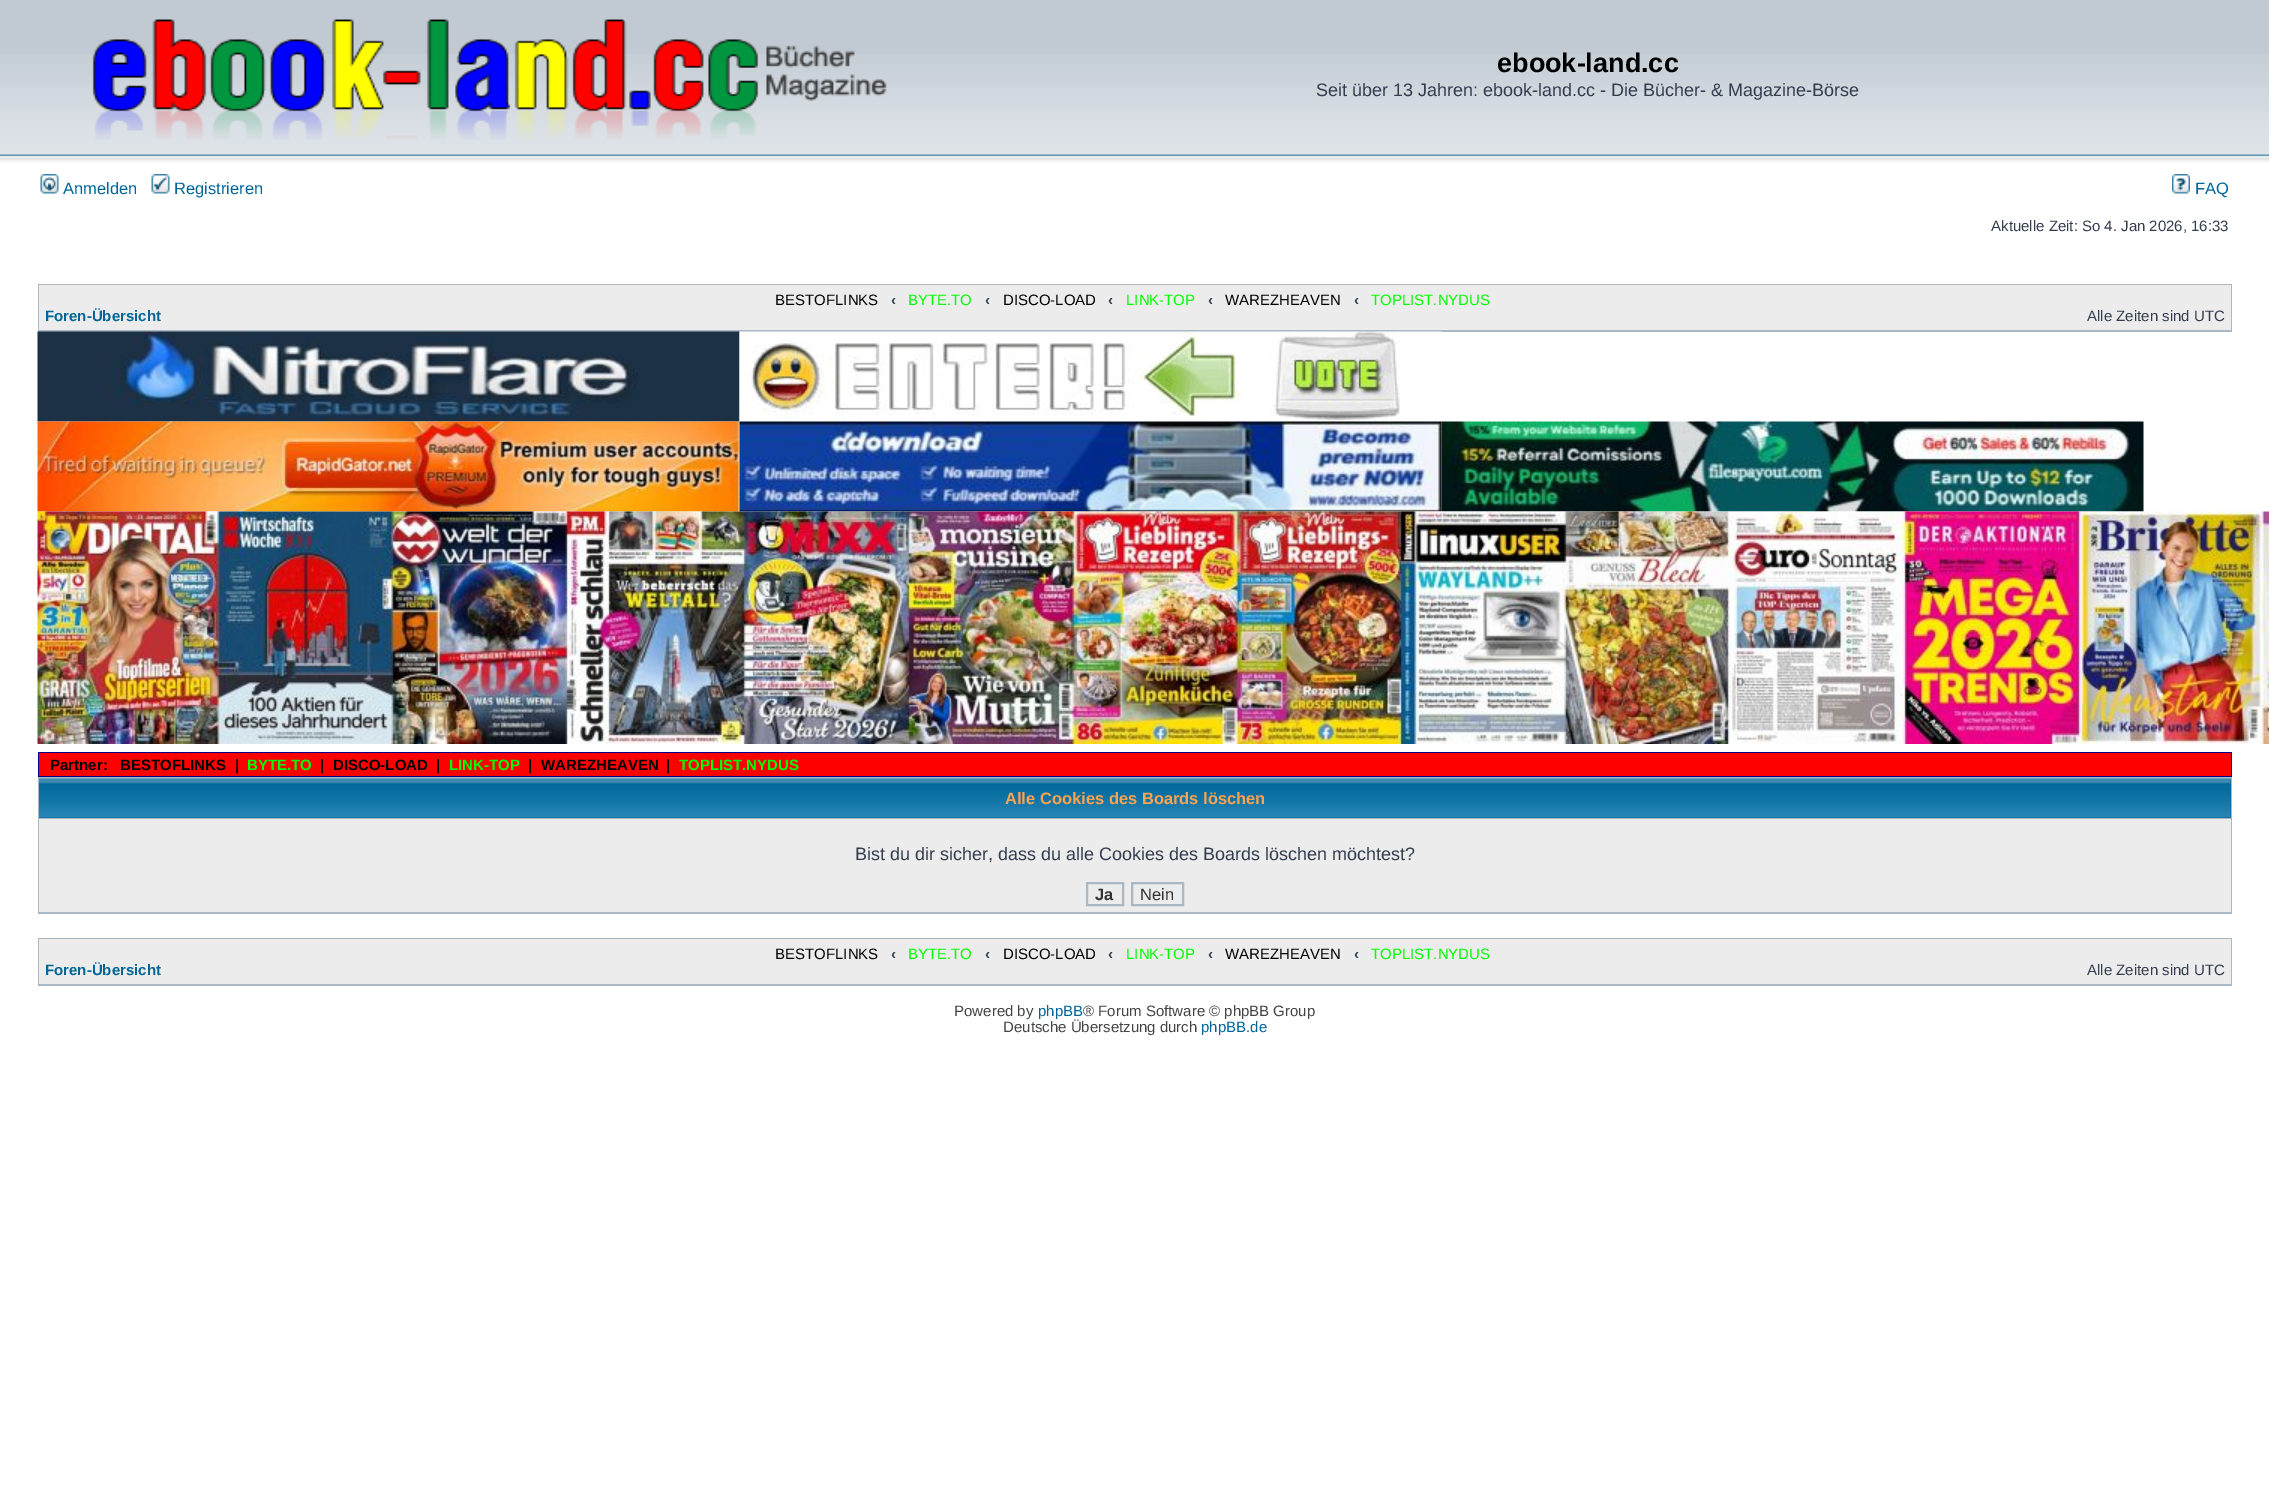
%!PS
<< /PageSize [2269 1502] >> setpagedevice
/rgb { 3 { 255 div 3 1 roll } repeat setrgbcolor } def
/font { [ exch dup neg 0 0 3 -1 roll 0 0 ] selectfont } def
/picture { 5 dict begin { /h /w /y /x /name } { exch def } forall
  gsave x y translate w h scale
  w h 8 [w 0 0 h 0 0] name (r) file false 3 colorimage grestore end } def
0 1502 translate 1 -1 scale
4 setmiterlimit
255 255 255 rgb
0 0 2269 1502 rectfill
193 202 210 rgb
0 0 2269 54 rectfill
(img/1.rgb) 0 54 2269 117 picture
(img/2.rgb) 92 19 795 121 picture
(img/3.rgb) 40 174 19 20 picture
(img/4.rgb) 151 174 19 20 picture
(img/5.rgb) 2172 174 18 20 picture
169 184 194 rgb
38 284 2194 48 rectfill
236 236 236 rgb
39 285 2192 45 rectfill
(img/6.rgb) 37 331 703 91 picture
(img/7.rgb) 739 331 703 91 picture
(img/8.rgb) 37 421 703 91 picture
(img/9.rgb) 739 421 703 91 picture
(img/10.rgb) 1441 421 703 91 picture
(img/11.rgb) 37 511 2232 233 picture
[
  [38 752 2194 25 0 0 139]
  [39 753 2192 23 255 0 0]
  [38 777 2194 137 169 184 194]
  [39 779 2192 39 0 102 153]
] { aload pop rgb rectfill } forall
(img/12.rgb) 39 778 2192 40 picture
236 236 236 rgb
39 819 2192 93 rectfill
169 184 194 rgb
2 setlinewidth
1087 883 36 22 rectstroke
1132 883 51 22 rectstroke
38 938 2194 48 rectfill
236 236 236 rgb
39 939 2192 45 rectfill
/LiberationSans-Bold 27 font
0 0 0 rgb
1497 72 moveto (ebook-land.cc) show
/LiberationSans-Regular 18 font
50 61 79 rgb
1316 96 moveto (Seit über 13 Jahren: ebook-land.cc - Die Bücher- & Magazine-Börse) show
/LiberationSans-Regular 16.5 font
0 101 151 rgb
[
  [(Anmelden) 63 194]
  [(Registrieren) 174 194]
  [(FAQ) 2195 194]
] { aload pop moveto show } forall
/LiberationSans-Regular 15 font
50 61 79 rgb
1991 231 moveto (Aktuelle Zeit: So 4. Jan 2026, 16:33) show
0 0 0 rgb
775 305 moveto (BESTOFLINKS) show
/LiberationSans-Bold 15 font
50 61 79 rgb
891 305 moveto (‹) show
/LiberationSans-Regular 15 font
0 255 0 rgb
908 305 moveto (BYTE.TO) show
/LiberationSans-Bold 15 font
50 61 79 rgb
985 305 moveto (‹) show
/LiberationSans-Regular 15 font
0 0 0 rgb
1003 305 moveto (DISCO-LOAD) show
/LiberationSans-Bold 15 font
50 61 79 rgb
1108 305 moveto (‹) show
/LiberationSans-Regular 15 font
0 255 0 rgb
1126 305 moveto (LINK-TOP) show
/LiberationSans-Bold 15 font
50 61 79 rgb
1208 305 moveto (‹) show
/LiberationSans-Regular 15 font
0 0 0 rgb
1225 305 moveto (WAREZHEAVEN) show
/LiberationSans-Bold 15 font
50 61 79 rgb
1354 305 moveto (‹) show
/LiberationSans-Regular 15 font
0 255 0 rgb
1371 305 moveto (TOPLIST.NYDUS) show
/LiberationSans-Bold 15 font
0 101 151 rgb
45 321 moveto (Foren-Übersicht) show
/LiberationSans-Regular 15 font
50 61 79 rgb
2087 321 moveto (Alle Zeiten sind UTC) show
/LiberationSans-Bold 15 font
0 0 0 rgb
[
  [(Partner:) 50 770]
  [(BESTOFLINKS) 120 770]
  [(|) 235 770]
] { aload pop moveto show } forall
0 255 0 rgb
247 770 moveto (BYTE.TO) show
0 0 0 rgb
[
  [(|) 320 770]
  [(DISCO-LOAD) 333 770]
  [(|) 436 770]
] { aload pop moveto show } forall
0 255 0 rgb
449 770 moveto (LINK-TOP) show
0 0 0 rgb
[
  [(|) 528 770]
  [(WAREZHEAVEN) 541 770]
  [(|) 666 770]
] { aload pop moveto show } forall
0 255 0 rgb
679 770 moveto (TOPLIST.NYDUS) show
/LiberationSans-Bold 16.5 font
255 163 79 rgb
1005 804 moveto (Alle Cookies des Boards löschen) show
/LiberationSans-Regular 18 font
50 61 79 rgb
855 860 moveto (Bist du dir sicher, dass du alle Cookies des Boards löschen möchtest?) show
/LiberationSans-Bold 16.5 font
51 51 51 rgb
1095 900 moveto (Ja) show
/LiberationSans-Regular 16.5 font
1140 900 moveto (Nein) show
/LiberationSans-Regular 15 font
0 0 0 rgb
775 959 moveto (BESTOFLINKS) show
/LiberationSans-Bold 15 font
50 61 79 rgb
891 959 moveto (‹) show
/LiberationSans-Regular 15 font
0 255 0 rgb
908 959 moveto (BYTE.TO) show
/LiberationSans-Bold 15 font
50 61 79 rgb
985 959 moveto (‹) show
/LiberationSans-Regular 15 font
0 0 0 rgb
1003 959 moveto (DISCO-LOAD) show
/LiberationSans-Bold 15 font
50 61 79 rgb
1108 959 moveto (‹) show
/LiberationSans-Regular 15 font
0 255 0 rgb
1126 959 moveto (LINK-TOP) show
/LiberationSans-Bold 15 font
50 61 79 rgb
1208 959 moveto (‹) show
/LiberationSans-Regular 15 font
0 0 0 rgb
1225 959 moveto (WAREZHEAVEN) show
/LiberationSans-Bold 15 font
50 61 79 rgb
1354 959 moveto (‹) show
/LiberationSans-Regular 15 font
0 255 0 rgb
1371 959 moveto (TOPLIST.NYDUS) show
/LiberationSans-Bold 15 font
0 101 151 rgb
45 975 moveto (Foren-Übersicht) show
/LiberationSans-Regular 15 font
50 61 79 rgb
2087 975 moveto (Alle Zeiten sind UTC) show
68 68 68 rgb
954 1016 moveto (Powered by) show
0 101 151 rgb
1038 1016 moveto (phpBB) show
68 68 68 rgb
1083 1016 moveto (® Forum Software © phpBB Group) show
1003 1032 moveto (Deutsche Übersetzung durch) show
0 101 151 rgb
1201 1032 moveto (phpBB.de) show
showpage
